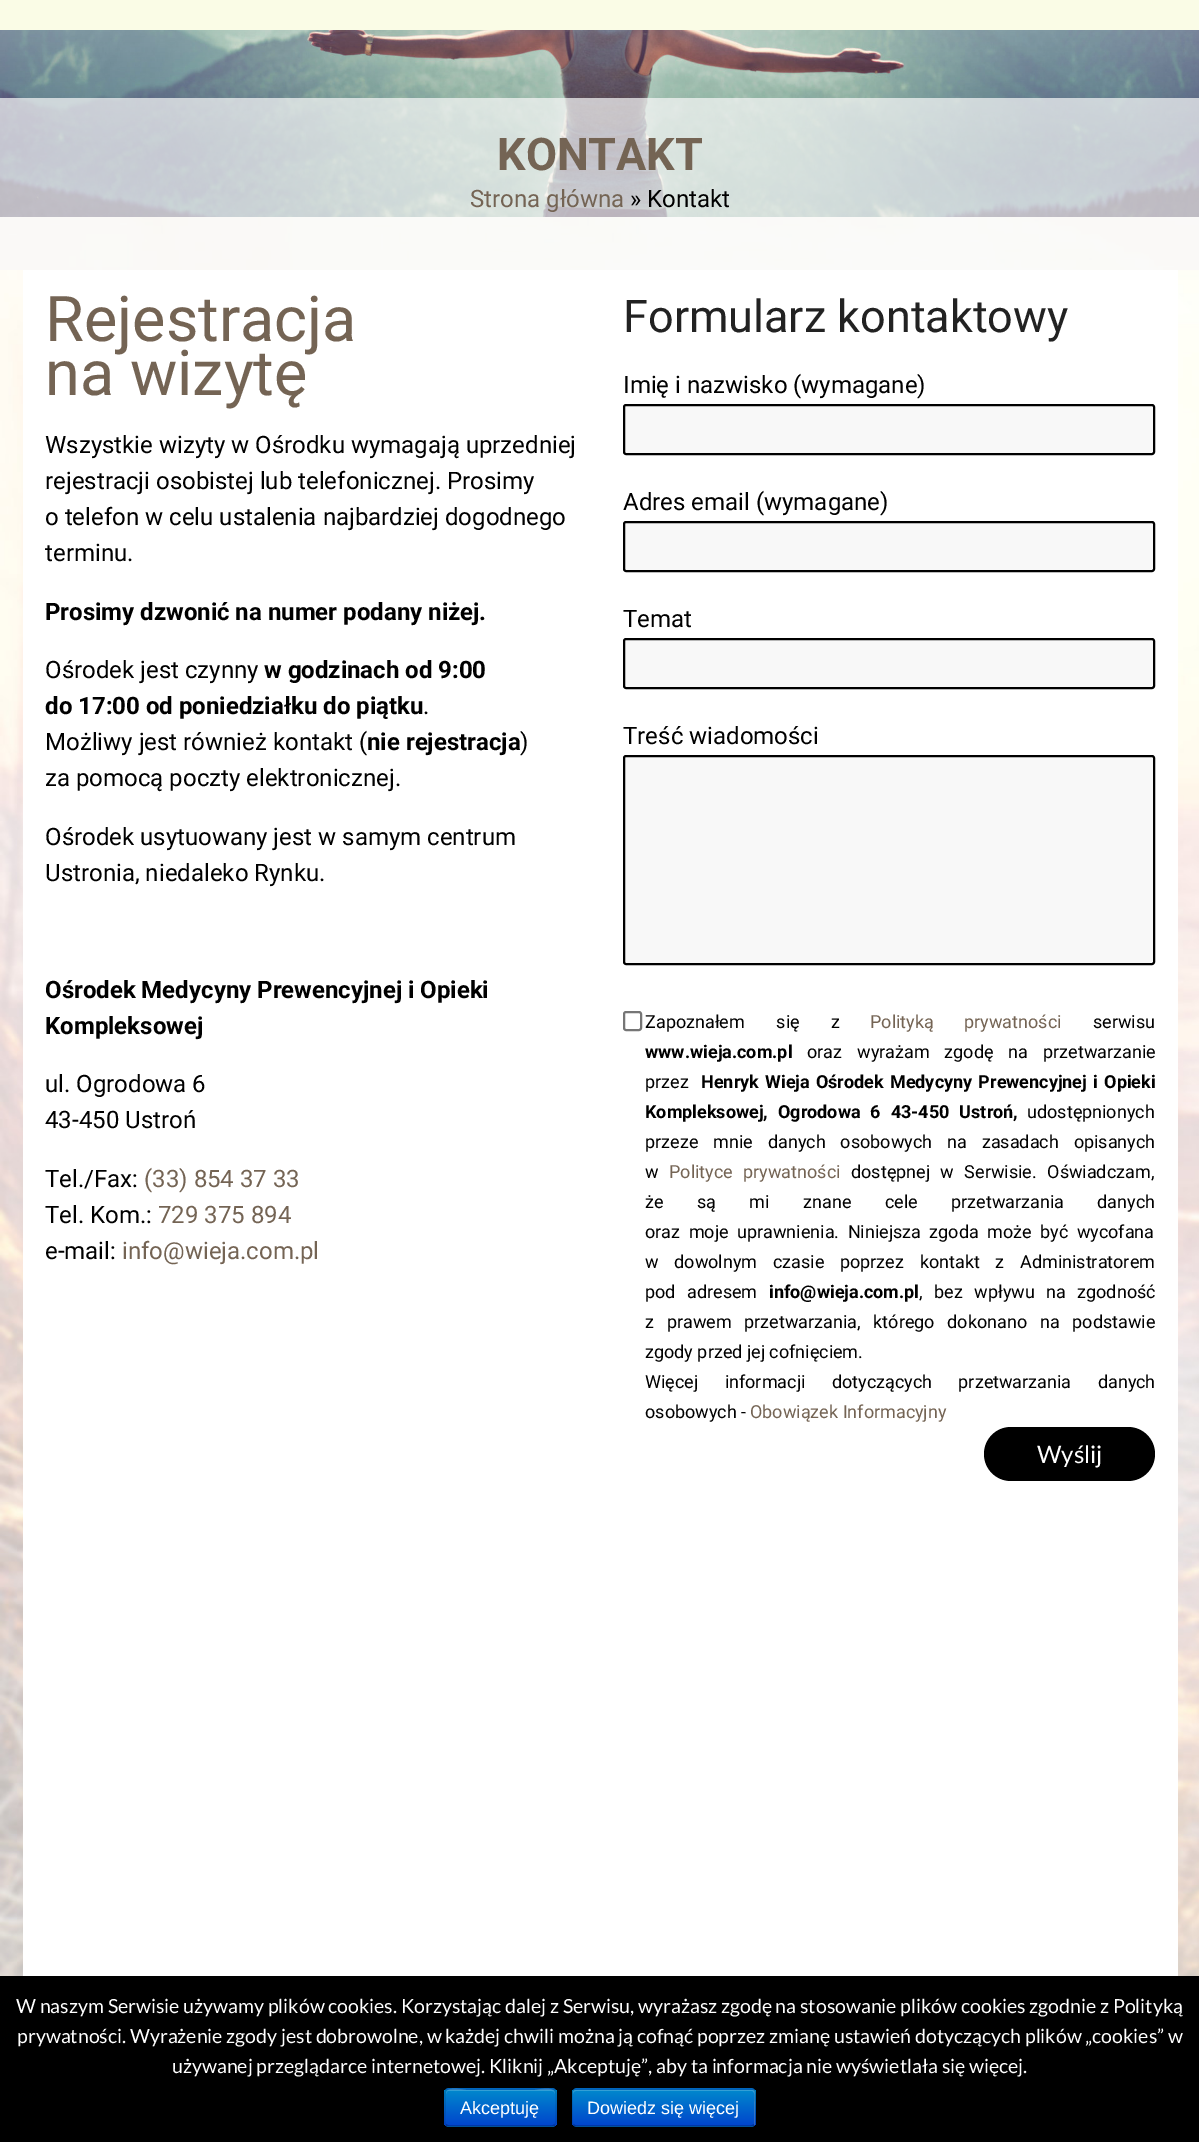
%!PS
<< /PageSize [1199 2142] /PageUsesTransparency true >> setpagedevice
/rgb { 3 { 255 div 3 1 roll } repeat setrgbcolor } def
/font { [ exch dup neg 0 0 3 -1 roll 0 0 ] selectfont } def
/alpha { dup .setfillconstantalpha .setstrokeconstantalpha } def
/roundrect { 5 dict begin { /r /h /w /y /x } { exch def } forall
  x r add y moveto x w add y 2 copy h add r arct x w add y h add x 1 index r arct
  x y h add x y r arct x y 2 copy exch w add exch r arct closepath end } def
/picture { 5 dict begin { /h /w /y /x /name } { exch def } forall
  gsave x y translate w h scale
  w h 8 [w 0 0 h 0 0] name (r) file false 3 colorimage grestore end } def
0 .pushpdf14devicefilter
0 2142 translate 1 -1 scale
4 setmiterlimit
255 255 255 rgb
0 0 1199 2142 rectfill
(img/1.rgb) 0 217 1199 1759 picture
250 252 230 rgb
0 0 1199 30 rectfill
(img/2.rgb) 0 30 1199 187 picture
0.71 alpha
248 248 248 rgb
0 98 1199 172 rectfill
1 alpha
255 255 255 rgb
23 270 1155 1706 rectfill
248 248 248 rgb
624 405 530 49 2 roundrect gsave fill grestore
0 0 0 rgb
2 setlinewidth
stroke
248 248 248 rgb
624 522 530 49 2 roundrect gsave fill grestore
0 0 0 rgb
stroke
248 248 248 rgb
624 639 530 49 2 roundrect gsave fill grestore
0 0 0 rgb
stroke
248 248 248 rgb
624 756 530 208 2 roundrect gsave fill grestore
0 0 0 rgb
stroke
118 118 118 rgb
624 1012 17 18 2 roundrect stroke
0 0 0 rgb
984 1427 171 54 27 roundrect fill
0 1976 1199 166 rectfill
0 109 204 rgb
444 2088 113 39 5 roundrect fill
gsave
444 2088 113 39 5 roundrect clip newpath
gsave 444 2090 moveto 557 2090 lineto 557 2126 lineto 444 2126 lineto closepath clip newpath
<< /ShadingType 2 /ColorSpace /DeviceRGB /Coords [500 2090 500 2126] /Extend [true true] /Function << /FunctionType 2 /Domain [0 1] /C0 [0 0.533 0.8] /C1 [0 0.267 0.8] /N 1 >> >> shfill grestore
grestore
0.2 alpha
255 255 255 rgb
448 2091 moveto 552 2091 lineto 554 2091 555 2092 555 2094 curveto 555 2085 537 2090 535 2090 curveto 466 2090 lineto 464 2090 446 2085 446 2094 curveto 446 2092 447 2091 448 2091 curveto closepath fill
0.25 alpha
0 0 0 rgb
1.5 setlinewidth
554.5 2125 moveto 552.5 2126 lineto 466 2126 lineto 448.5 2126 lineto 446 2125 lineto stroke
0.1 alpha
446 2125 moveto 443.5 2122.5 445 2115 445 2112.5 curveto 445 2097.5 lineto 445 2094.5 444 2089 448.5 2089 curveto 535 2089 lineto 559 2089 556 2084.5 556 2107.5 curveto 556 2117.5 lineto 556 2119.5 556.5 2123.5 554.5 2125 curveto stroke
1 alpha
0 109 204 rgb
572 2088 184 39 5 roundrect fill
gsave
572 2088 184 39 5 roundrect clip newpath
gsave 572 2090 moveto 756 2090 lineto 756 2126 lineto 572 2126 lineto closepath clip newpath
<< /ShadingType 2 /ColorSpace /DeviceRGB /Coords [664 2090 664 2126] /Extend [true true] /Function << /FunctionType 2 /Domain [0 1] /C0 [0 0.533 0.8] /C1 [0 0.267 0.8] /N 1 >> >> shfill grestore
grestore
0.2 alpha
255 255 255 rgb
576 2091 moveto 752 2091 lineto 756 2091 754 2103 754 2104 curveto 754 2125 lineto 755 2125 755 2124 755 2123 curveto 755 2093 lineto 755 2091 754 2090 752 2090 curveto 576 2090 lineto 574 2090 573 2091 573 2093 curveto 573 2094 lineto 573 2092 574 2091 576 2091 curveto closepath fill
0.25 alpha
0 0 0 rgb
754 2125 moveto 751.5 2126 lineto 575.5 2126 lineto 573.5 2125 lineto stroke
0.1 alpha
573.5 2125 moveto 572.5 2124.5 572 2123.5 572 2122.5 curveto 572 2092.5 lineto 572 2091.5 572.5 2090.5 573.5 2090 curveto 574 2089 575 2089 576 2089 curveto 751.5 2089 lineto 752.5 2089 753.5 2089 754 2090 curveto 755 2090.5 755 2091.5 755 2092.5 curveto 755 2122.5 lineto 755 2123.5 755 2124.5 754 2125 curveto stroke
/Roboto-Bold 45 font
1 alpha
116 100 84 rgb
497 170 moveto (KONTAKT) show
/Roboto-Regular 24 font
470 207 moveto (Strona główna) show
0 0 0 rgb
630 207 moveto (» Kontakt) show
/Roboto-Regular 63 font
116 100 84 rgb
45 341 moveto (Rejestracja) show
45 395 moveto (na wizytę) show
/Roboto-Regular 24 font
0 0 0 rgb
[
  [(Wszystkie wizyty w Ośrodku wymagają uprzedniej) 45 453]
  [(rejestracji osobistej lub telefonicznej. Prosimy) 45 489]
  [(o telefon w celu ustalenia najbardziej dogodnego) 45 525]
  [(terminu.) 45 561]
] { aload pop moveto show } forall
/Roboto-Bold 24 font
45 620 moveto (Prosimy dzwonić na numer podany niżej.) show
/Roboto-Regular 24 font
45 678 moveto (Ośrodek jest czynny) show
/Roboto-Bold 24 font
264 678 moveto (w godzinach od 9:00) show
45 714 moveto (do 17:00 od poniedziałku do piątku) show
/Roboto-Regular 24 font
423 714 moveto (.) show
45 750 moveto (Możliwy jest również kontakt \() show
/Roboto-Bold 24 font
367 750 moveto (nie rejestracja) show
/Roboto-Regular 24 font
[
  [(\)) 520 750]
  [(za pomocą poczty elektronicznej.) 45 786]
  [(Ośrodek usytuowany jest w samym centrum) 45 845]
  [(Ustronia, niedaleko Rynku.) 45 881]
] { aload pop moveto show } forall
/Roboto-Bold 24 font
45 998 moveto (Ośrodek Medycyny Prewencyjnej i Opieki) show
45 1034 moveto (Kompleksowej) show
/Roboto-Regular 24 font
[
  [(ul. Ogrodowa 6) 45 1092]
  [(43-450 Ustroń) 45 1128]
  [(Tel./Fax:) 45 1187]
] { aload pop moveto show } forall
116 100 84 rgb
144 1187 moveto (\(33\) 854 37 33) show
0 0 0 rgb
45 1223 moveto (Tel. Kom.:) show
116 100 84 rgb
158 1223 moveto (729 375 894) show
0 0 0 rgb
45 1259 moveto (e-mail:) show
116 100 84 rgb
122 1259 moveto (info@wieja.com.pl) show
/Roboto-Regular 45 font
34 34 34 rgb
623 332 moveto (Formularz kontaktowy) show
/Roboto-Regular 24 font
0 0 0 rgb
[
  [(Imię i nazwisko \(wymagane\)) 623 393]
  [(Adres email \(wymagane\)) 623 510]
  [(Temat) 623 627]
  [(Treść wiadomości) 623 744]
] { aload pop moveto show } forall
/Roboto-Regular 18 font
645 1028 moveto 27 0 32 (Zapoznałem się z) widthshow
116 100 84 rgb
870 1028 moveto 26 0 32 (Polityką prywatności) widthshow
0 0 0 rgb
1093 1028 moveto (serwisu) show
/Roboto-Bold 18 font
645 1058 moveto (www.wieja.com.pl) show
/Roboto-Regular 18 font
807 1058 moveto 10.5 0 32 (oraz wyrażam zgodę na przetwarzanie) widthshow
645 1088 moveto (przez) show
/Roboto-Bold 18 font
701 1088 moveto 1.75 0 32 (Henryk Wieja Ośrodek Medycyny Prewencyjnej i Opieki) widthshow
645 1118 moveto 5.5 0 32 (Kompleksowej, Ogrodowa 6 43-450 Ustroń,) widthshow
/Roboto-Regular 18 font
1027 1118 moveto (udostępnionych) show
645 1148 moveto 10.5 0 32 (przeze mnie danych osobowych na zasadach opisanych) widthshow
645 1178 moveto (w) show
116 100 84 rgb
669 1178 moveto 6 0 32 (Polityce prywatności) widthshow
0 0 0 rgb
851 1178 moveto 6 0 32 (dostępnej w Serwisie. Oświadczam,) widthshow
645 1208 moveto 29 0 32 (że są mi znane cele przetwarzania danych) widthshow
645 1238 moveto 4 0 32 (oraz moje uprawnienia. Niniejsza zgoda może być wycofana) widthshow
645 1268 moveto 11.25 0 32 (w dowolnym czasie poprzez kontakt z Administratorem) widthshow
645 1298 moveto (pod) show
687 1298 moveto (adresem) show
/Roboto-Bold 18 font
769 1298 moveto (info@wieja.com.pl) show
/Roboto-Regular 18 font
919 1298 moveto 7 0 32 (, bez wpływu na zgodność) widthshow
645 1328 moveto 8.25 0 32 (z prawem przetwarzania, którego dokonano na podstawie) widthshow
645 1358 moveto (zgody przed jej cofnięciem.) show
645 1388 moveto 22 0 32 (Więcej informacji dotyczących przetwarzania danych) widthshow
645 1418 moveto (osobowych -) show
116 100 84 rgb
750 1418 moveto (Obowiązek Informacyjny) show
/Lato-Regular 24 font
255 255 255 rgb
1037 1463 moveto (Wyślij) show
/Lato-Regular 19.5 font
[
  [(W naszym Serwisie używamy plików cookies. Korzystając dalej z Serwisu, wyrażasz zgodę na stosowanie plików cookies zgodnie z Polityką) 16 2013]
  [(prywatności. Wyrażenie zgody jest dobrowolne, w każdej chwili można ją cofnąć poprzez zmianę ustawień dotyczących plików „cookies” w) 17 2043]
  [(używanej przeglądarce internetowej. Kliknij „Akceptuję”, aby ta informacja nie wyświetlała się więcej.) 172 2073]
] { aload pop moveto show } forall
/LiberationSans-Regular 18 font
460 2114 moveto (Akceptuję) show
587 2114 moveto (Dowiedz się więcej) show
.poppdf14devicefilter showpage
